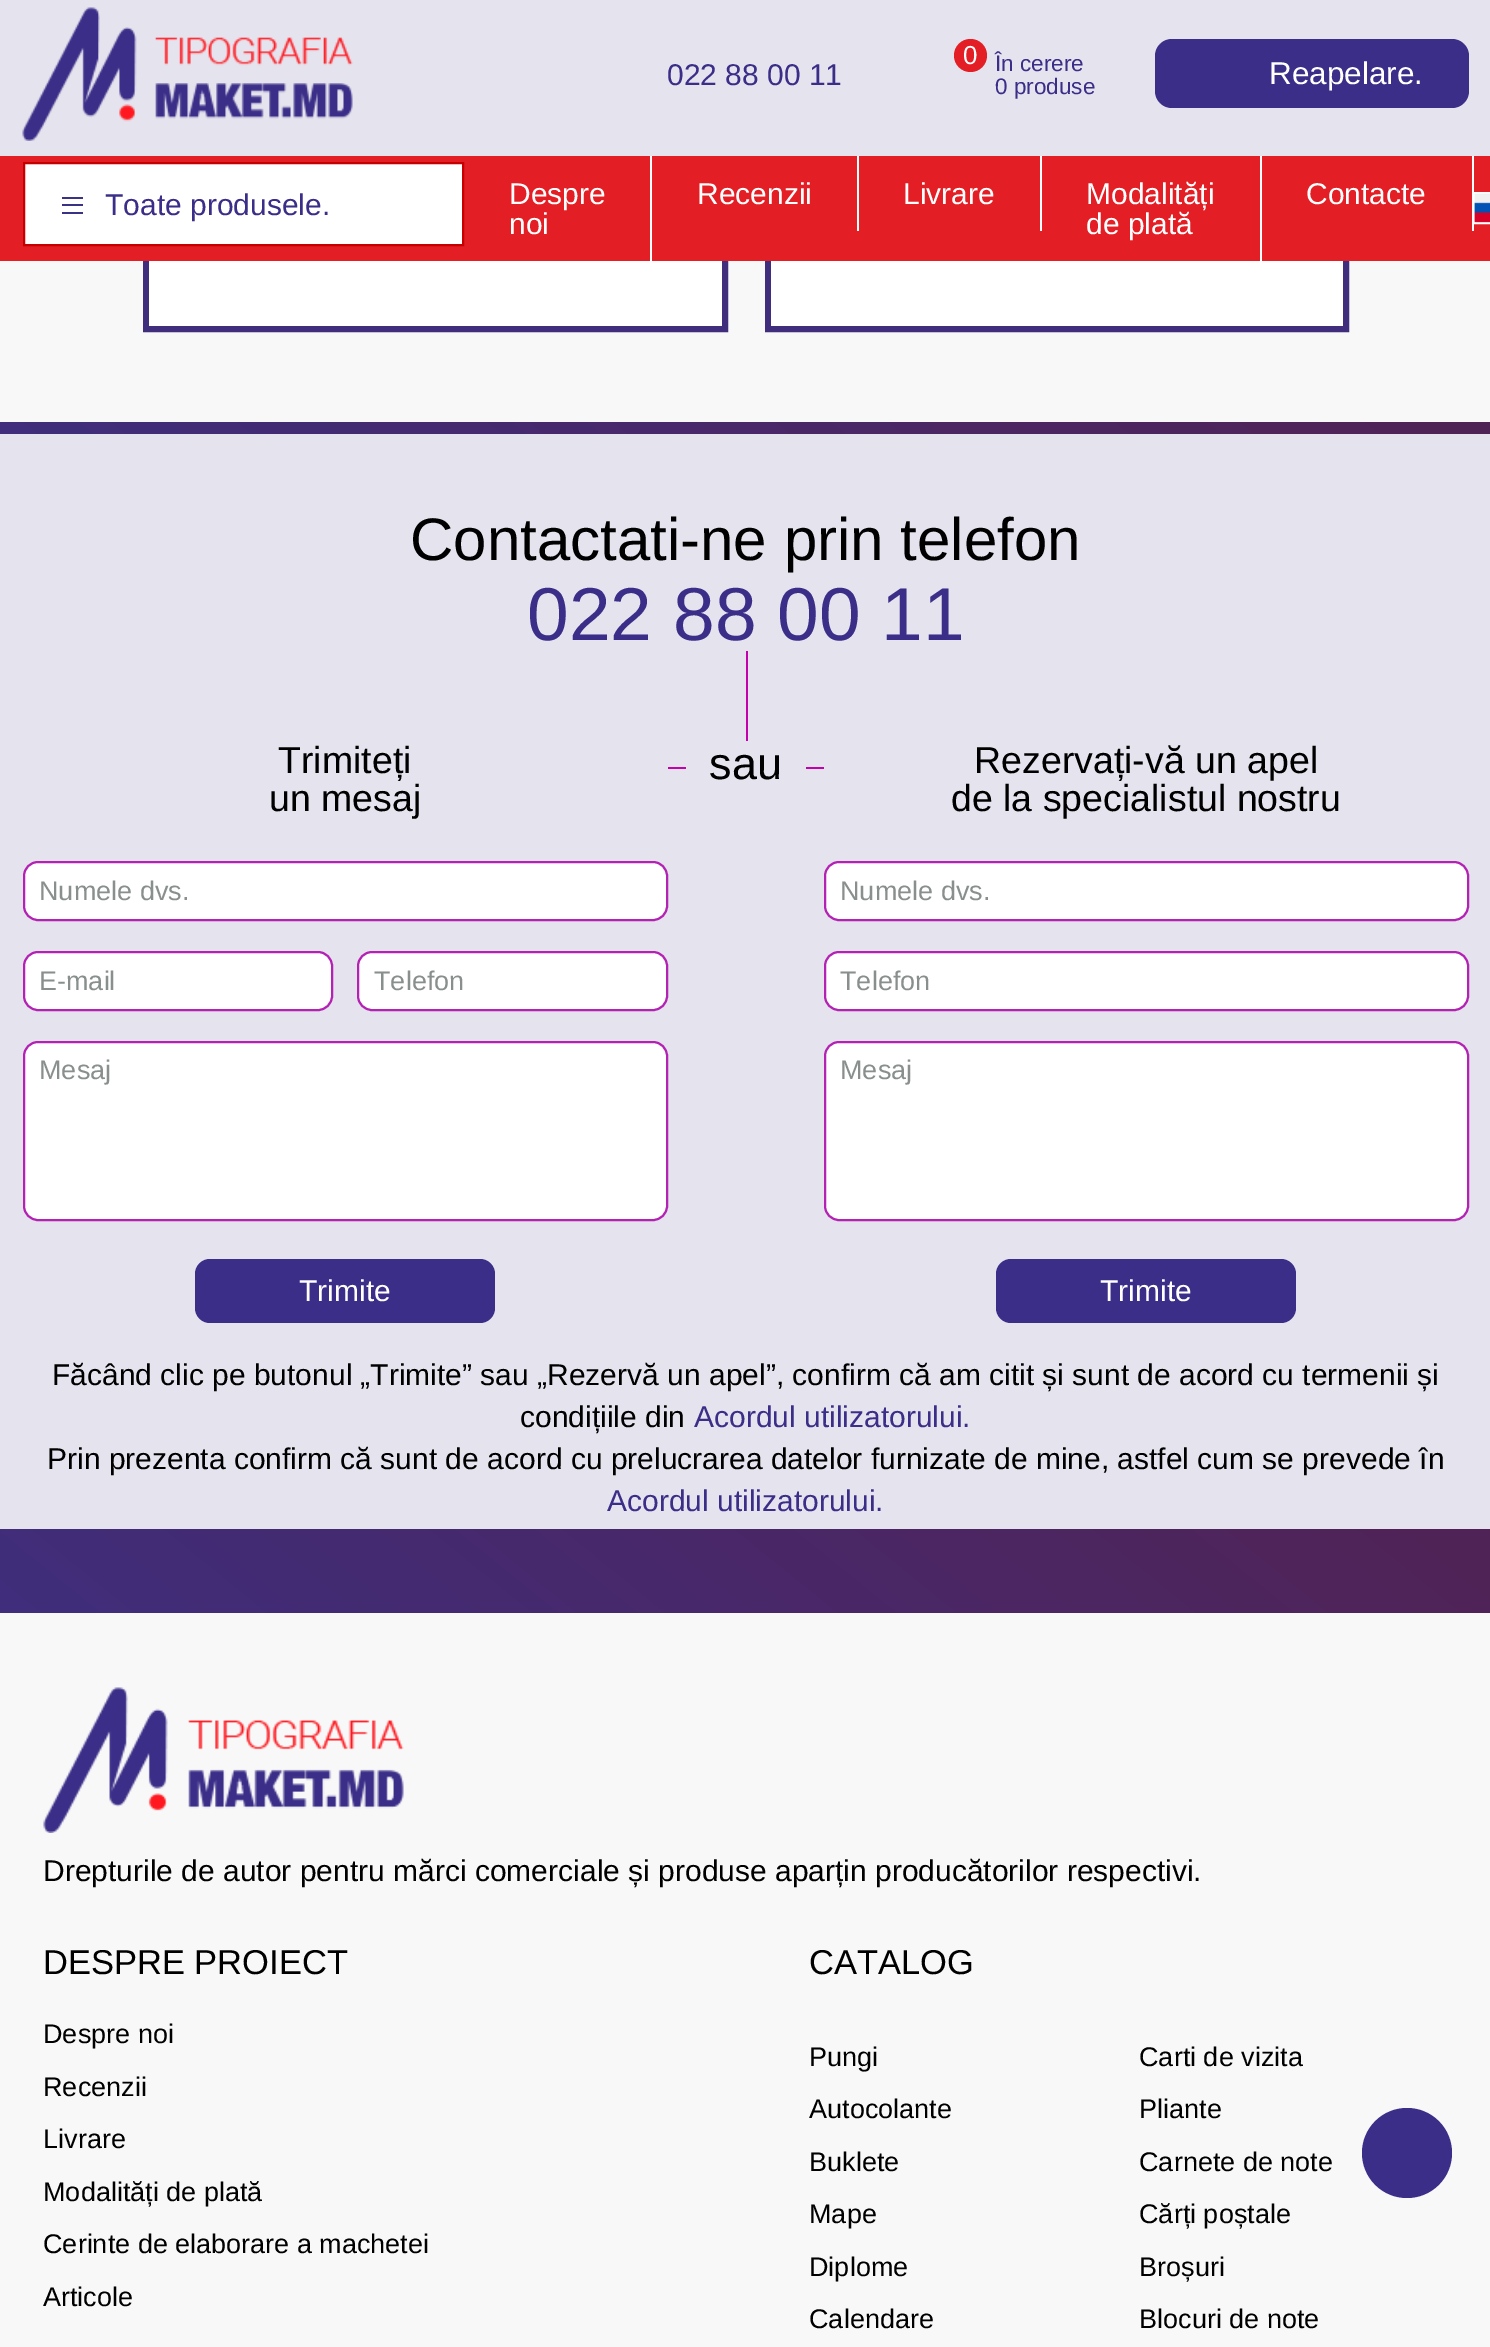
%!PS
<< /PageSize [1490 2347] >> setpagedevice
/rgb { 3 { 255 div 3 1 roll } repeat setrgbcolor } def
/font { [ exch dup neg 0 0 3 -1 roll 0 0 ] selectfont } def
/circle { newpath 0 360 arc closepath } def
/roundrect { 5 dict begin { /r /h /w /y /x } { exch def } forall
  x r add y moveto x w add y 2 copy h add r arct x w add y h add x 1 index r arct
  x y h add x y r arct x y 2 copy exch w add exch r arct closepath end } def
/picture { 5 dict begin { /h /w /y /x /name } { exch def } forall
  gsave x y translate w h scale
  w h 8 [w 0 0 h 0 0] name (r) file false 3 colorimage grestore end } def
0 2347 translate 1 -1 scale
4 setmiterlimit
248 248 248 rgb
0 0 1490 2347 rectfill
64 46 124 rgb
6 setlinewidth
146 96 579 233 rectstroke
768 96 578 233 rectstroke
229 227 237 rgb
0 0 1490 156 rectfill
(img/1.rgb) 22 7 331 134 picture
227 30 36 rgb
970.5 55.5 16.5 circle fill
58 46 136 rgb
1155 39 314 69 17 roundrect fill
227 30 36 rgb
0 156 1490 105 rectfill
255 255 255 rgb
24 163 moveto 463 163 lineto 463 245 lineto 24 245 lineto closepath gsave fill grestore
198 0 0 rgb
2 setlinewidth
stroke
[
  [62 197 21 2 58 50 133]
  [62 204 21 2 58 50 133]
  [62 212 21 2 58 50 133]
  [650 156 2 105 255 255 255]
  [857 156 2 75 255 255 255]
  [1040 156 2 75 255 255 255]
  [1260 156 2 105 255 255 255]
  [1472 156 2 75 255 255 255]
] { aload pop rgb rectfill } forall
1474 193 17 30 rectstroke
(img/2.rgb) 1474 193 16 30 picture
149 261 573 65 rectfill
771 261 572 65 rectfill
gsave 0 422 moveto 1490 422 lineto 1490 434 lineto 0 434 lineto closepath clip newpath
<< /ShadingType 2 /ColorSpace /DeviceRGB /Coords [447 796 1044 59] /Extend [true true] /Function << /FunctionType 2 /Domain [0 1] /C0 [0.251 0.18 0.486] /C1 [0.318 0.137 0.337] /N 1 >> >> shfill grestore
229 227 237 rgb
0 434 1490 1095 rectfill
255 255 255 rgb
24 862 643 58 14 roundrect gsave fill grestore
180 34 180 rgb
stroke
255 255 255 rgb
24 952 308 58 14 roundrect gsave fill grestore
180 34 180 rgb
stroke
255 255 255 rgb
358 952 309 58 14 roundrect gsave fill grestore
180 34 180 rgb
stroke
255 255 255 rgb
24 1042 643 178 14 roundrect gsave fill grestore
180 34 180 rgb
stroke
58 46 136 rgb
195 1259 300 64 15 roundrect fill
[
  [746 651 2 90 197 0 173]
  [668 767 18 2 197 0 173]
  [806 767 18 2 197 0 173]
] { aload pop rgb rectfill } forall
255 255 255 rgb
825 862 643 58 14 roundrect gsave fill grestore
180 34 180 rgb
stroke
255 255 255 rgb
825 952 643 58 14 roundrect gsave fill grestore
180 34 180 rgb
stroke
255 255 255 rgb
825 1042 643 178 14 roundrect gsave fill grestore
180 34 180 rgb
stroke
58 46 136 rgb
996 1259 300 64 15 roundrect fill
gsave 0 1529 moveto 1490 1529 lineto 1490 1613 lineto 0 1613 lineto closepath clip newpath
<< /ShadingType 2 /ColorSpace /DeviceRGB /Coords [430 1960 1061 1181] /Extend [true true] /Function << /FunctionType 2 /Domain [0 1] /C0 [0.251 0.18 0.486] /C1 [0.318 0.137 0.337] /N 1 >> >> shfill grestore
(img/3.rgb) 43 1687 361 146 picture
1407 2153 45 circle fill
/LiberationSans-Regular 30 font
667 85 moveto (022 88 00 11) show
/LiberationSans-Regular 26 font
255 255 255 rgb
963 64 moveto (0) show
/LiberationSans-Regular 22.5 font
58 46 136 rgb
995 71 moveto (În cerere) show
995 94 moveto (0 produse) show
/LiberationSans-Regular 31.5 font
255 255 255 rgb
1269 84 moveto (Reapelare.) show
/LiberationSans-Regular 30 font
58 46 136 rgb
105 215 moveto (Toate produsele.) show
255 255 255 rgb
[
  [(Despre) 509 204]
  [(noi) 509 234]
  [(Recenzii) 697 204]
  [(Livrare) 903 204]
  [(Modalități) 1086 204]
  [(de plată) 1086 234]
  [(Contacte) 1306 204]
] { aload pop moveto show } forall
/LiberationSans-Regular 60 font
0 0 0 rgb
410 560 moveto (Contactati-ne prin telefon) show
/LiberationSans-Regular 75 font
58 46 136 rgb
527 640 moveto (022 88 00 11) show
/LiberationSans-Regular 37.5 font
0 0 0 rgb
278 773 moveto (Trimiteți) show
269 811 moveto (un mesaj) show
/LiberationSans-Regular 27 font
136 143 141 rgb
[
  [(Numele dvs.) 39 900]
  [(E-mail) 39 990]
  [(Telefon) 374 990]
  [(Mesaj) 39 1079]
] { aload pop moveto show } forall
/LiberationSans-Regular 30 font
255 255 255 rgb
299 1301 moveto (Trimite) show
/LiberationSans-Regular 45 font
0 0 0 rgb
709 779 moveto (sau) show
/LiberationSans-Regular 37.5 font
974 773 moveto (Rezervați-vă un apel) show
951 811 moveto (de la specialistul nostru) show
/LiberationSans-Regular 27 font
136 143 141 rgb
[
  [(Numele dvs.) 840 900]
  [(Telefon) 840 990]
  [(Mesaj) 840 1079]
] { aload pop moveto show } forall
/LiberationSans-Regular 30 font
255 255 255 rgb
1100 1301 moveto (Trimite) show
0 0 0 rgb
52 1385 moveto (Făcând clic pe butonul „Trimite” sau „Rezervă un apel”, confirm că am citit și sunt de acord cu termenii și) show
520 1427 moveto (condițiile din) show
58 46 136 rgb
694 1427 moveto (Acordul utilizatorului.) show
0 0 0 rgb
47 1469 moveto (Prin prezenta confirm că sunt de acord cu prelucrarea datelor furnizate de mine, astfel cum se prevede în) show
58 46 136 rgb
607 1511 moveto (Acordul utilizatorului.) show
0 0 0 rgb
43 1881 moveto (Drepturile de autor pentru mărci comerciale și produse aparțin producătorilor respectivi.) show
/LiberationSans-Regular 34.5 font
43 1974 moveto (DESPRE PROIECT) show
/LiberationSans-Regular 27 font
[
  [(Despre noi) 43 2043]
  [(Recenzii) 43 2096]
  [(Livrare) 43 2148]
  [(Modalități de plată) 43 2201]
  [(Cerinte de elaborare a machetei) 43 2253]
  [(Articole) 43 2306]
] { aload pop moveto show } forall
/LiberationSans-Regular 34.5 font
809 1974 moveto (CATALOG) show
/LiberationSans-Regular 27 font
[
  [(Pungi) 809 2066]
  [(Carti de vizita) 1139 2066]
  [(Autocolante) 809 2118]
  [(Pliante) 1139 2118]
  [(Buklete) 809 2171]
  [(Carnete de note) 1139 2171]
  [(Mape) 809 2223]
  [(Cărți poștale) 1139 2223]
  [(Diplome) 809 2276]
  [(Broșuri) 1139 2276]
  [(Calendare) 809 2328]
  [(Blocuri de note) 1139 2328]
] { aload pop moveto show } forall
showpage
